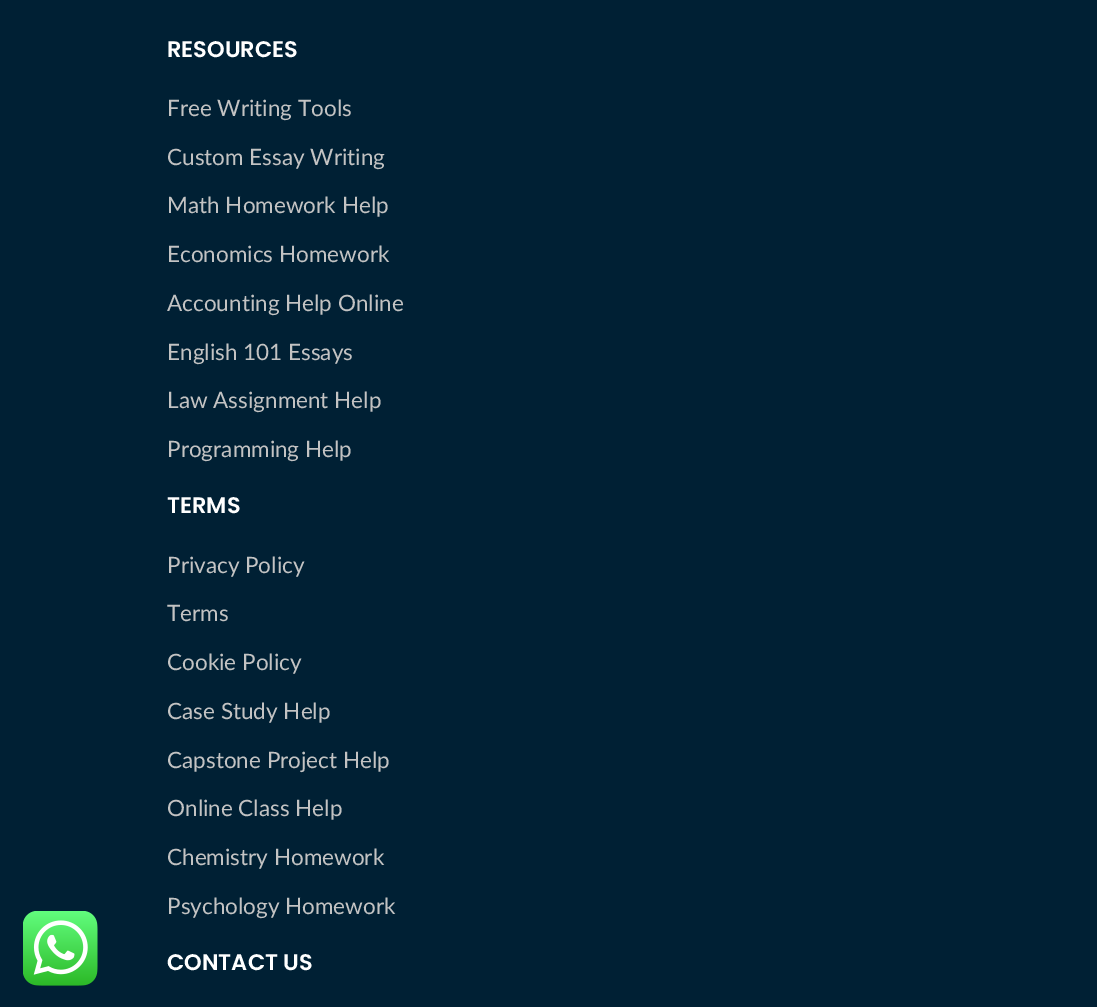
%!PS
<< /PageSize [1097 1007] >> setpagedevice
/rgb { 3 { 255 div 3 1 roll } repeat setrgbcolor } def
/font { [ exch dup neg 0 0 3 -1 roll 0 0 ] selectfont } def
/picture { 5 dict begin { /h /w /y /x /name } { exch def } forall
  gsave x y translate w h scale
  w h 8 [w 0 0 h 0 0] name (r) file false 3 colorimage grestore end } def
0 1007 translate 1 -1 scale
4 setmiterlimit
0 32 52 rgb
0 0 1097 1007 rectfill
(img/1.rgb) 23 911 75 75 picture
/Poppins-SemiBold 22.5 font
255 255 255 rgb
167 57 moveto (RESOURCES) show
/Lato-Regular 22.5 font
195 195 195 rgb
[
  [(Free Writing Tools) 167 116]
  [(Custom Essay Writing) 167 165]
  [(Math Homework Help) 167 213]
  [(Economics Homework) 167 262]
  [(Accounting Help Online) 167 311]
  [(English 101 Essays) 167 360]
  [(Law Assignment Help) 167 408]
  [(Programming Help) 167 457]
] { aload pop moveto show } forall
/Poppins-SemiBold 22.5 font
255 255 255 rgb
167 513 moveto (TERMS) show
/Lato-Regular 22.5 font
195 195 195 rgb
[
  [(Privacy Policy) 167 573]
  [(Terms) 167 621]
  [(Cookie Policy) 167 670]
  [(Case Study Help) 167 719]
  [(Capstone Project Help) 167 768]
  [(Online Class Help) 167 816]
  [(Chemistry Homework) 167 865]
  [(Psychology Homework) 167 914]
] { aload pop moveto show } forall
/Poppins-SemiBold 22.5 font
255 255 255 rgb
167 970 moveto (CONTACT US) show
showpage
